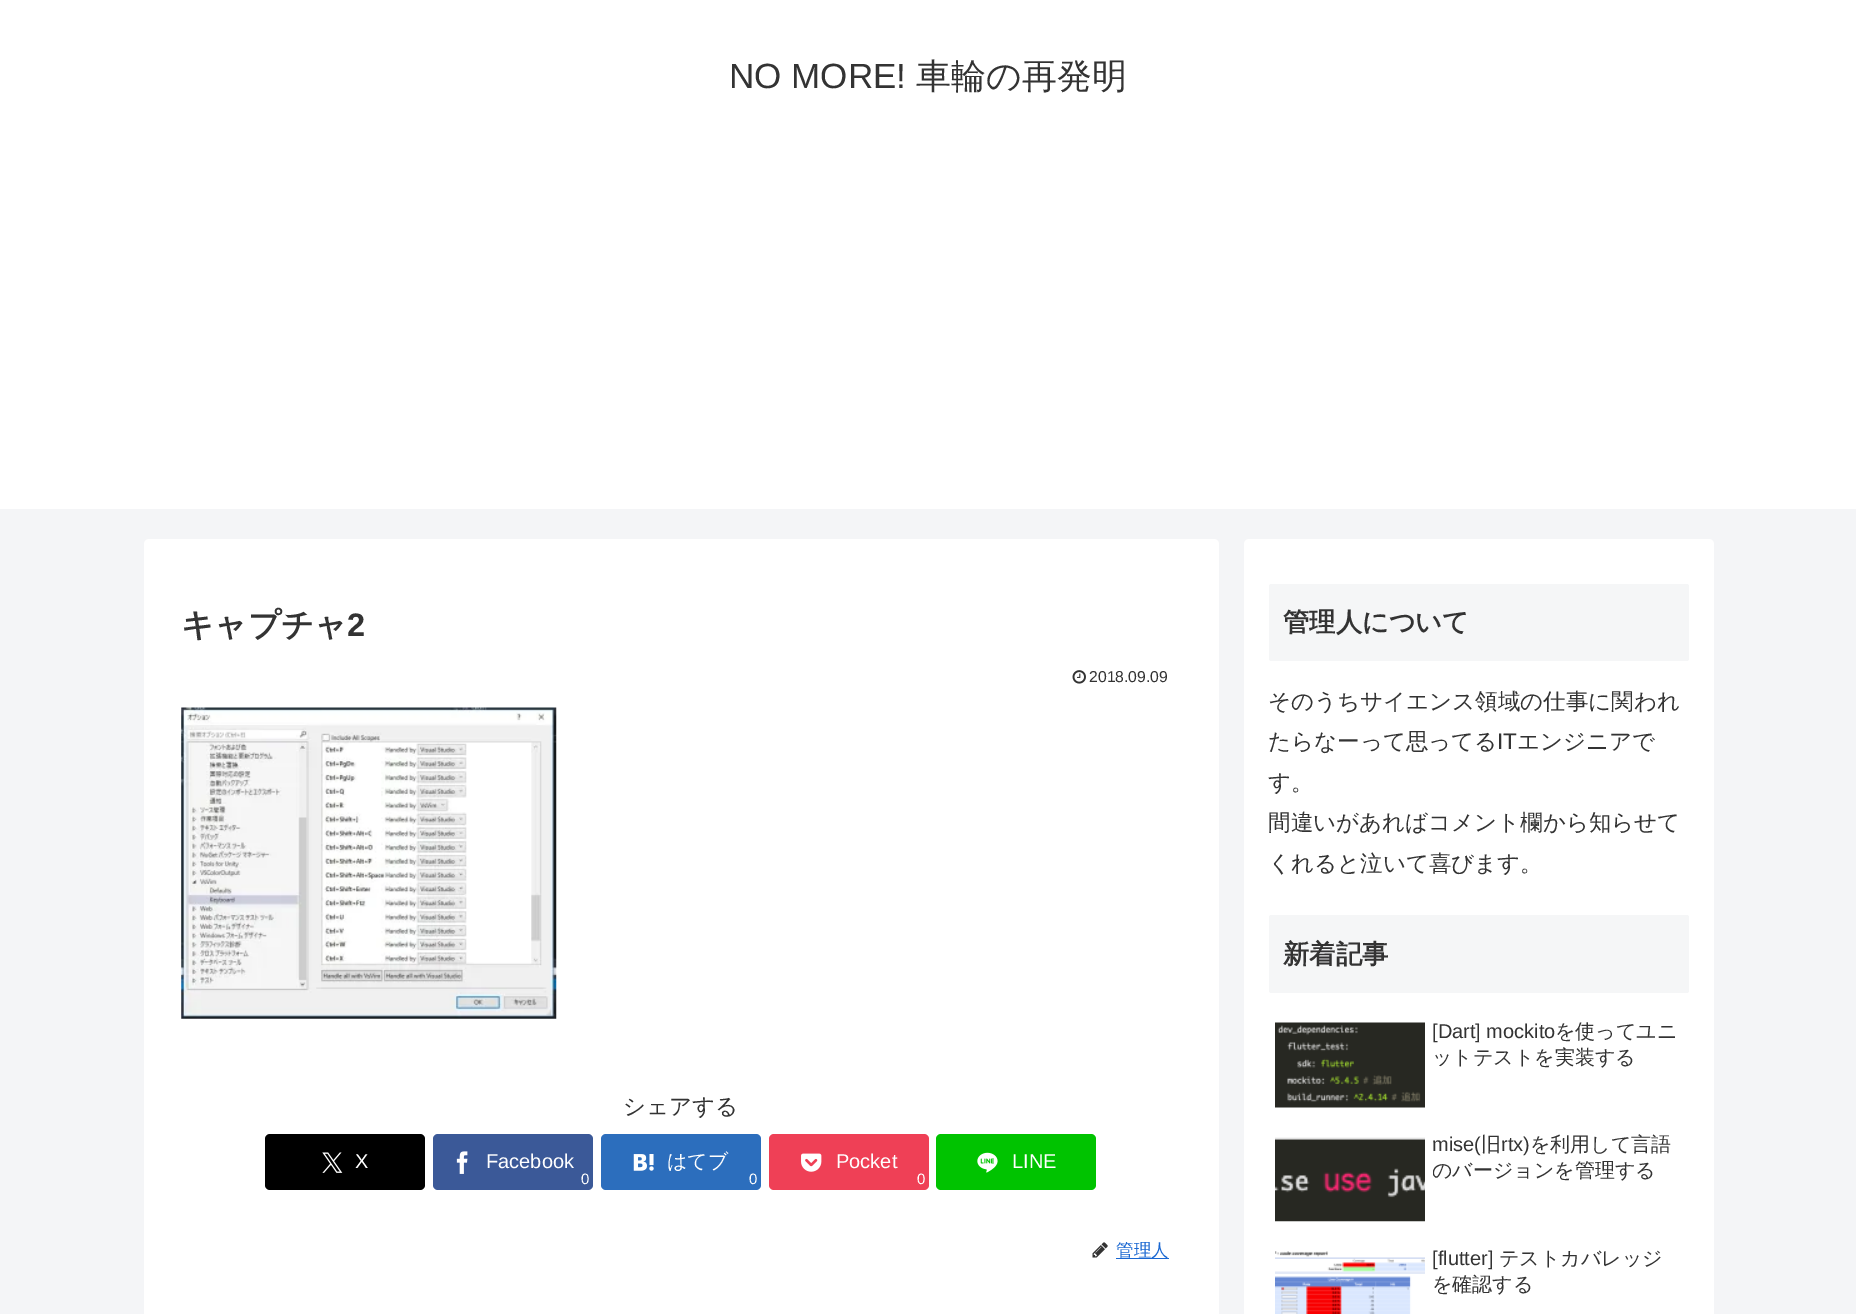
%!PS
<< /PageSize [1856 1314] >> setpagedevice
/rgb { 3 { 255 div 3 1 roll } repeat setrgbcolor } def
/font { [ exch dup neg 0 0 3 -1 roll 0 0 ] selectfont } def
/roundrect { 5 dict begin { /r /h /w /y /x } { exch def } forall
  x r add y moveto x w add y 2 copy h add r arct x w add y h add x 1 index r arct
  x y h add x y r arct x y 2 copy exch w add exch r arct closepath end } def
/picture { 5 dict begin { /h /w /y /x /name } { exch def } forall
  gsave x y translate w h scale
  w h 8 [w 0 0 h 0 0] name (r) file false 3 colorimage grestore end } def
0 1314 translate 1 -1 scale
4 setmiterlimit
244 245 247 rgb
0 0 1856 1314 rectfill
255 255 255 rgb
0 0 1856 509 rectfill
144 539 1075 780 5 roundrect fill
(img/1.rgb) 1072 670 14 14 picture
(img/2.rgb) 181 707 376 312 picture
0 0 0 rgb
265 1134 160 56 5 roundrect fill
(img/3.rgb) 322 1152 21 21 picture
59 89 152 rgb
433 1134 160 56 5 roundrect fill
(img/4.rgb) 456 1151 12 23 picture
44 110 189 rgb
601 1134 160 56 5 roundrect fill
(img/5.rgb) 633 1154 21 17 picture
239 64 86 rgb
769 1134 160 56 5 roundrect fill
(img/6.rgb) 801 1153 21 19 picture
0 195 0 rgb
936 1134 160 56 5 roundrect fill
(img/7.rgb) 977 1152 21 21 picture
(img/8.rgb) 1092 1242 16 16 picture
25 103 210 rgb
1116 1258 53 1 rectfill
255 255 255 rgb
1244 539 470 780 5 roundrect fill
245 246 247 rgb
1269 584 420 77 2.5 roundrect fill
1269 915 420 78 2.5 roundrect fill
(img/9.rgb) 1275 1022 150 86 picture
(img/10.rgb) 1275 1137 150 85 picture
(img/11.rgb) 1275 1251 150 63 picture
/LiberationSans-Regular 35 font
51 51 51 rgb
729 88 moveto (NO MORE!) show
/WenQuanYiZenHei-Medium 35 font
916 88 moveto (車輪の再発明) show
/WenQuanYiZenHei-Bold 32.5 font
181 636 moveto (キャプチャ) show
/LiberationSans-Bold 32.5 font
347 636 moveto (2) show
/LiberationSans-Regular 15.75 font
1089 682 moveto (2018.09.09) show
/WenQuanYiZenHei-Medium 22.5 font
623 1114 moveto (シェアする) show
/LiberationSans-Regular 20 font
255 255 255 rgb
355 1168 moveto (X) show
486 1168 moveto (Facebook) show
/LiberationSans-Regular 15 font
581 1184 moveto (0) show
/WenQuanYiZenHei-Medium 20 font
667 1168 moveto (はてブ) show
/LiberationSans-Regular 15 font
749 1184 moveto (0) show
/LiberationSans-Regular 20 font
836 1168 moveto (Pocket) show
/LiberationSans-Regular 15 font
917 1184 moveto (0) show
/LiberationSans-Regular 20 font
1012 1168 moveto (LINE) show
/WenQuanYiZenHei-Medium 17.5 font
25 103 210 rgb
1116 1256 moveto (管理人) show
/WenQuanYiZenHei-Bold 26.25 font
51 51 51 rgb
1283 631 moveto (管理人について) show
/WenQuanYiZenHei-Medium 22.5 font
1268 709 moveto (そのうちサイエンス領域の仕事に関われ) show
1268 749 moveto (たらなーって思ってる) show
/LiberationSans-Regular 22.5 font
1497 749 moveto (IT) show
/WenQuanYiZenHei-Medium 22.5 font
[
  [(エンジニアで) 1517 749]
  [(す。) 1268 790]
  [(間違いがあればコメント欄から知らせて) 1268 830]
  [(くれると泣いて喜びます。) 1268 871]
] { aload pop moveto show } forall
/WenQuanYiZenHei-Bold 26.25 font
1283 963 moveto (新着記事) show
/LiberationSans-Regular 20 font
1432 1038 moveto ([Dart] mockito) show
/WenQuanYiZenHei-Medium 20 font
1555 1038 moveto (を使ってユニ) show
1432 1064 moveto (ットテストを実装する) show
/LiberationSans-Regular 20 font
1432 1151 moveto (mise\() show
/WenQuanYiZenHei-Medium 20 font
1481 1151 moveto (旧) show
/LiberationSans-Regular 20 font
1501 1151 moveto (rtx\)) show
/WenQuanYiZenHei-Medium 20 font
1530 1151 moveto (を利用して言語) show
gsave
1433 1133 250 52 rectclip
1432 1177 moveto (のバージョンを管理する) show
grestore
/LiberationSans-Regular 20 font
1432 1265 moveto ([flutter]) show
/WenQuanYiZenHei-Medium 20 font
1499 1265 moveto (テストカバレッジ) show
1432 1291 moveto (を確認する) show
showpage
